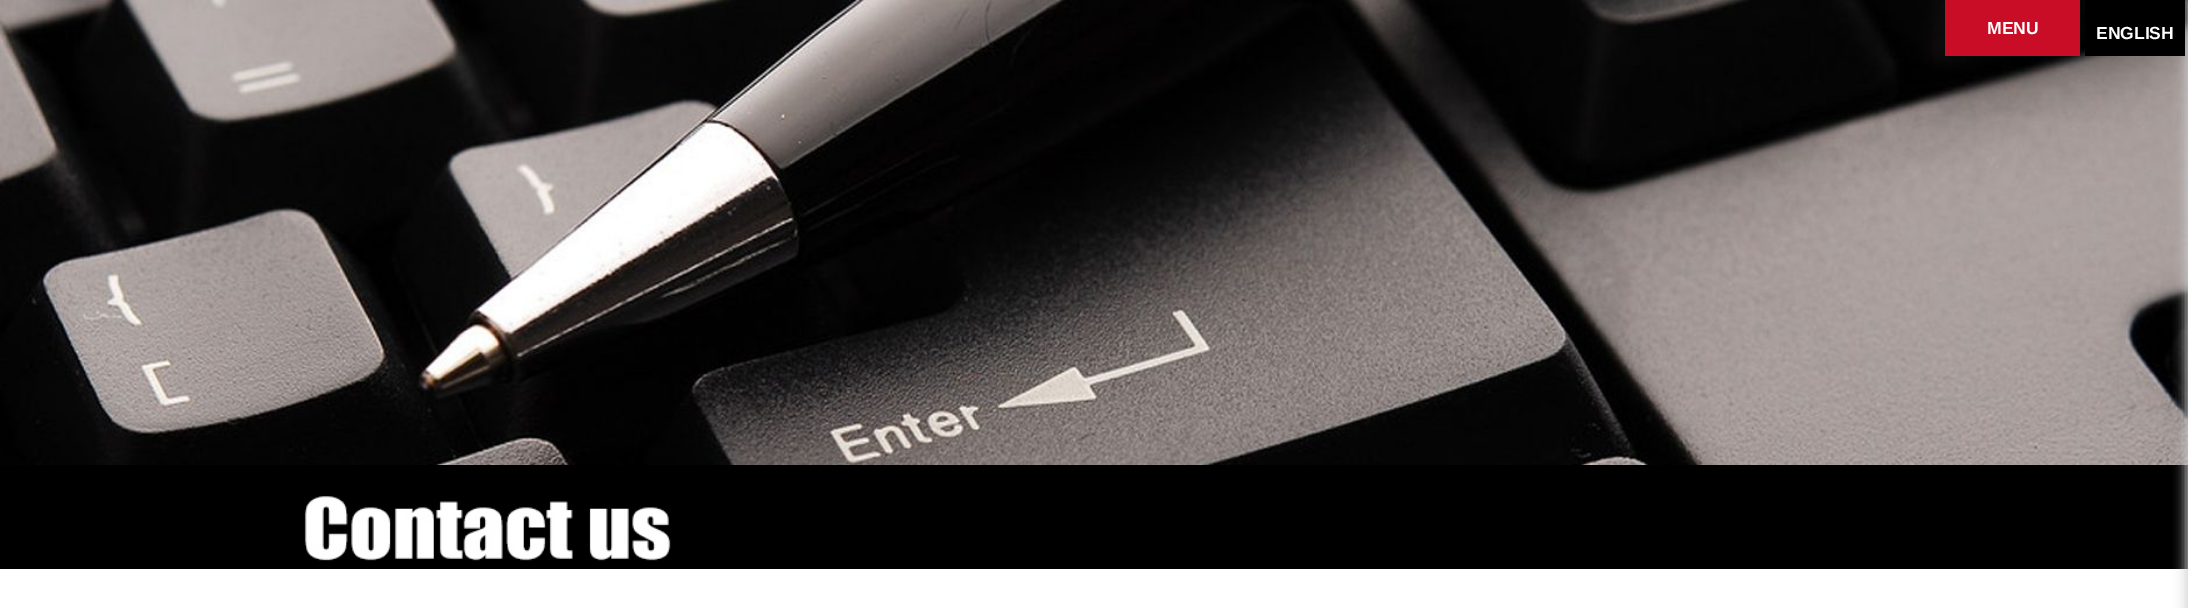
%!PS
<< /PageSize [2188 608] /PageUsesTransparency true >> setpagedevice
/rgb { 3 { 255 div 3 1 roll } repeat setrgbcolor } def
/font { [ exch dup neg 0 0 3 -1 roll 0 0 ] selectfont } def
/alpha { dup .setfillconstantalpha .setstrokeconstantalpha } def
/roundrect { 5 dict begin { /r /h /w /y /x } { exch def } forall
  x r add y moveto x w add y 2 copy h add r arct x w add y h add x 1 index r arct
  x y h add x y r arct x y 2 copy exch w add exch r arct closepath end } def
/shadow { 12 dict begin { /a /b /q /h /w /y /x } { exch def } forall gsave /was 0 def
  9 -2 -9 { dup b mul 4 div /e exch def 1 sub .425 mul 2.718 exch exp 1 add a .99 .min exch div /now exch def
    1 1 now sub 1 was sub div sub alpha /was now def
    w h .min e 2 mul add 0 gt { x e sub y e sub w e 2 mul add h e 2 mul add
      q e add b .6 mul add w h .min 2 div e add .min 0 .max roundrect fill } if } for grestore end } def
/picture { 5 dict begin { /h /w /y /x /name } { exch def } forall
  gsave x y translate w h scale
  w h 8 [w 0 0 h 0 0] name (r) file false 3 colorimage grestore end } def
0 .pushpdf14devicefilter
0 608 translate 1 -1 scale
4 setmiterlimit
255 255 255 rgb
0 0 2188 608 rectfill
(img/1.rgb) 0 0 2188 465 picture
201 13 38 rgb
1945 0 135 56 rectfill
0 0 0 rgb
0 465 2188 104 rectfill
204 204 204 rgb
2186 0 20 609 0 6 1 shadow
0 0 0 rgb
2085 0 100 56 rectfill
(img/2.rgb) 304 496 367 65 picture
/LiberationSans-Bold 17.5 font
255 255 255 rgb
1987 34 moveto (MENU) show
2096 39 moveto (ENGLISH) show
.poppdf14devicefilter showpage
